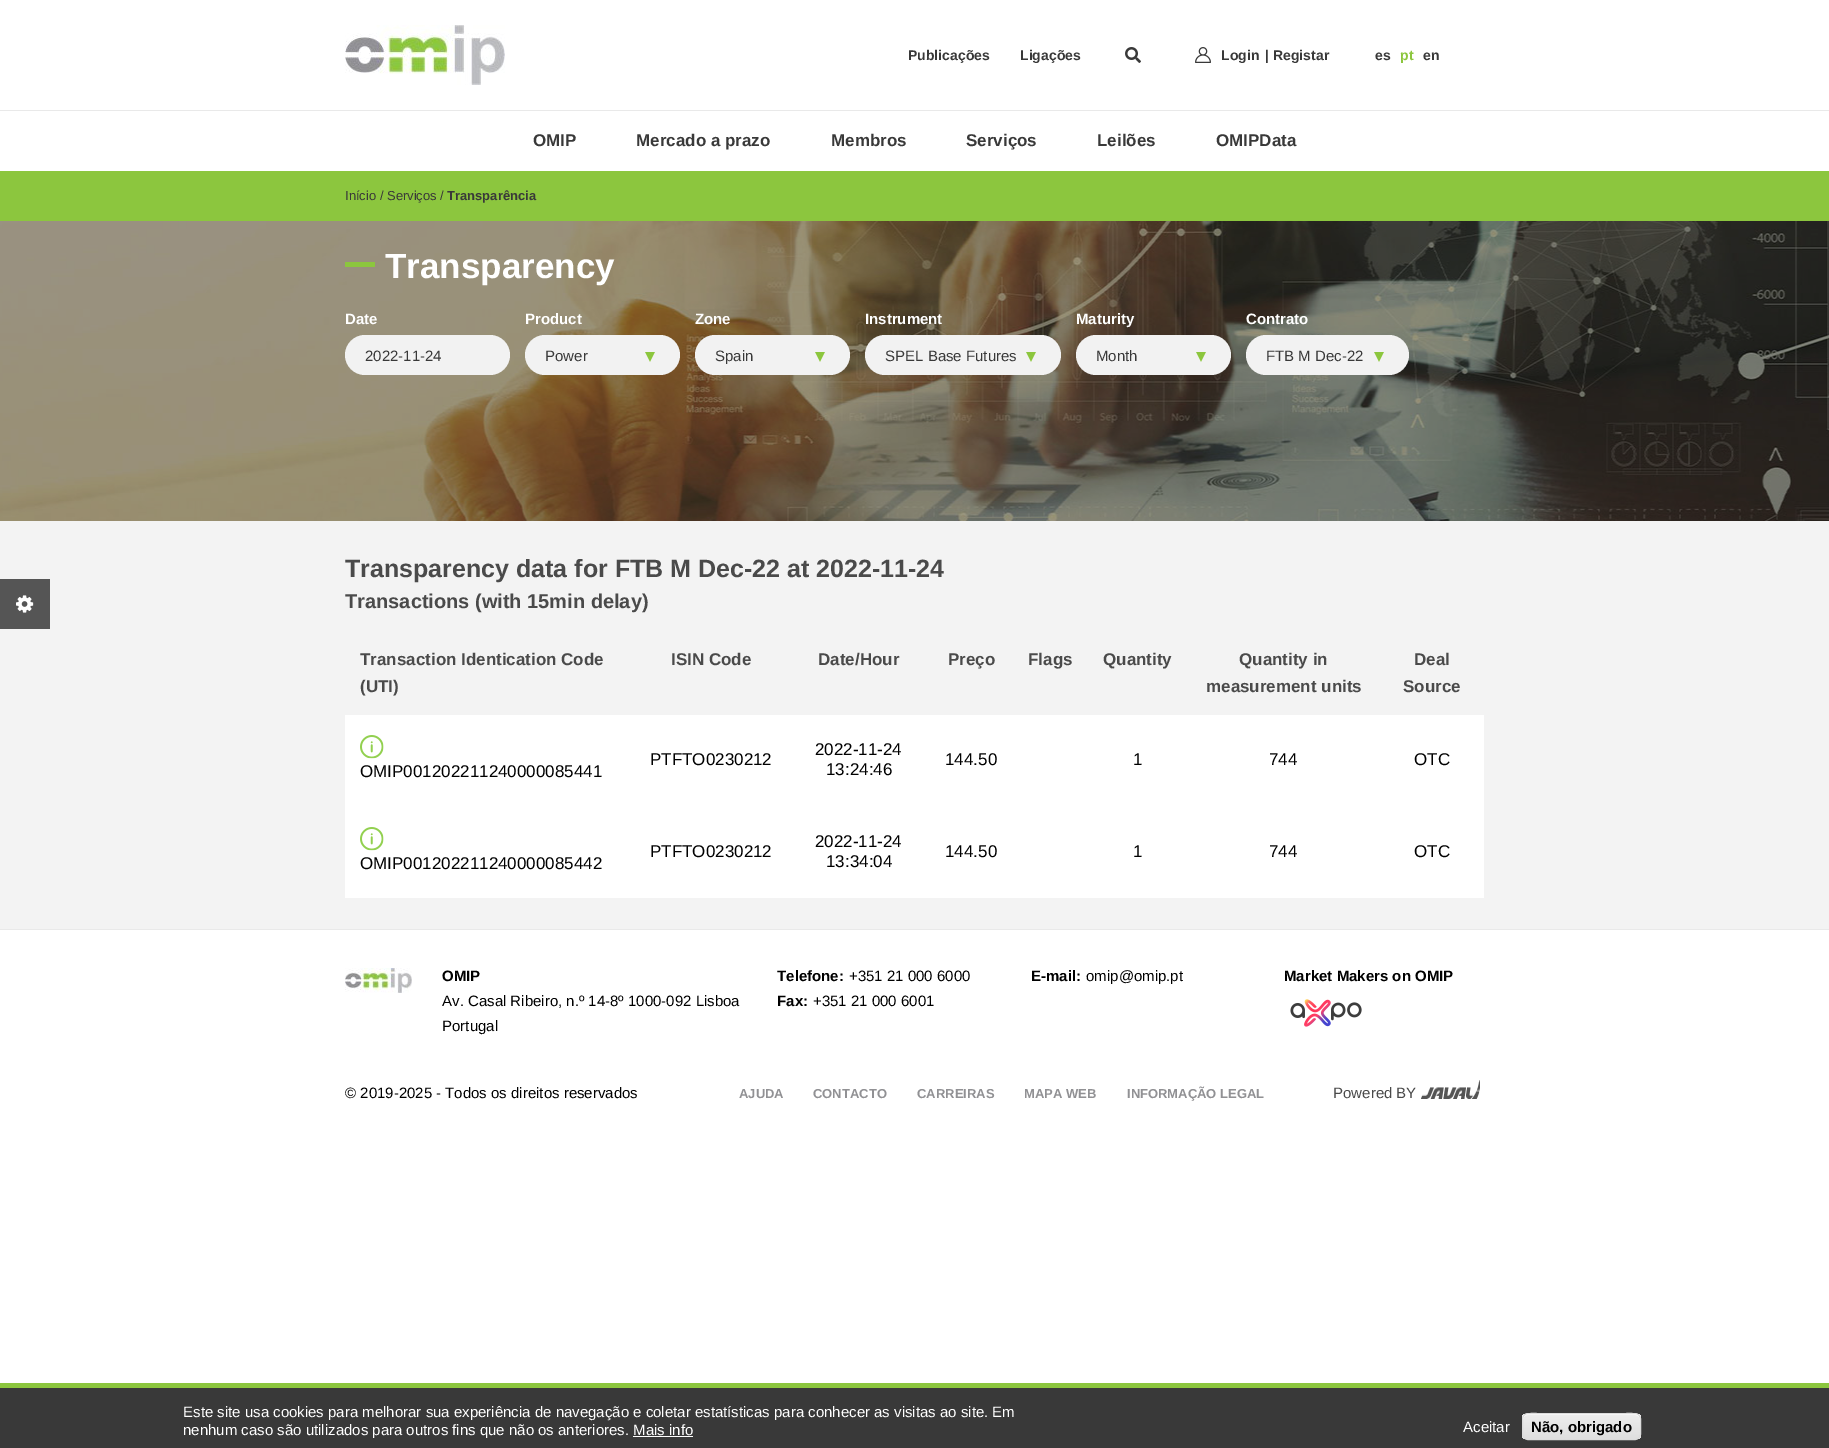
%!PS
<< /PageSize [1829 1448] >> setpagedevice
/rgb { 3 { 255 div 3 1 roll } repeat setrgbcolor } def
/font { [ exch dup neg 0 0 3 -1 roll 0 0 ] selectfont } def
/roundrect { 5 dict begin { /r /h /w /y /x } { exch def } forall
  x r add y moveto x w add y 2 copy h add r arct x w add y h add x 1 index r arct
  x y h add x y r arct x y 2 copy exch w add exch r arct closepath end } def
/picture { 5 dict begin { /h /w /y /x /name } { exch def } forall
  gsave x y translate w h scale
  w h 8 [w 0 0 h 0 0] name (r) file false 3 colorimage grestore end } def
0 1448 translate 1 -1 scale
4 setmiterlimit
255 255 255 rgb
0 0 1829 1448 rectfill
(img/1.rgb) 345 25 160 60 picture
(img/2.rgb) 1125 47 16 16 picture
(img/3.rgb) 1195 47 16 16 picture
[
  [0 110 1829 1 233 233 233]
  [0 171 1829 50 140 198 62]
  [0 521 1829 408 243 243 243]
  [0 579 50 50 85 85 85]
] { aload pop rgb rectfill } forall
(img/4.rgb) 16 595 18 18 picture
(img/5.rgb) 0 221 1829 300 picture
140 198 62 rgb
345 262 30 5 rectfill
242 242 242 rgb
345 335 165 40 20 roundrect fill
525 335 155 40 20 roundrect fill
(img/6.rgb) 645 352 10 10 picture
695 335 155 40 20 roundrect fill
(img/6.rgb) 815 352 10 10 picture
865 335 196 40 20 roundrect fill
(img/6.rgb) 1026 352 10 10 picture
1076 335 155 40 20 roundrect fill
(img/6.rgb) 1196 352 10 10 picture
1246 335 163 40 20 roundrect fill
(img/6.rgb) 1374 352 10 10 picture
255 255 255 rgb
345 715 1139 91 rectfill
(img/7.rgb) 360 735 24 24 picture
345 806 1139 92 rectfill
(img/7.rgb) 360 827 24 24 picture
233 233 233 rgb
0 929 1829 1 rectfill
(img/8.rgb) 345 968 67 25 picture
(img/9.rgb) 1290 999 72 28 picture
(img/10.rgb) 1421 1080 59 19 picture
[
  [0 1388 1829 60 57 57 57]
  [0 1383 1829 5 140 198 62]
  [633 1436 60 1 255 255 255]
] { aload pop rgb rectfill } forall
gsave
1522 1413 119 27 6 roundrect clip newpath
gsave 1522 1414 moveto 1641 1414 lineto 1641 1439 lineto 1522 1439 lineto closepath clip newpath
<< /ShadingType 2 /ColorSpace /DeviceRGB /Coords [1582 1414 1582 1439] /Extend [true true] /Function << /FunctionType 3 /Domain [0 1] /Functions [<< /FunctionType 2 /Domain [0 1] /C0 [0.929 0.929 0.929] /C1 [0.929 0.929 0.929] /N 1 >> << /FunctionType 2 /Domain [0 1] /C0 [0.929 0.929 0.929] /C1 [0.875 0.875 0.875] /N 1 >>] /Bounds [0.05] /Encode [0 1 0 1] >> >> shfill grestore
grestore
1528 1415 moveto 1635 1415 lineto 1638 1415 1640 1417 1640 1420 curveto 1640 1409 1622 1414 1617 1414 curveto 1546 1414 lineto 1541 1414 1523 1409 1523 1420 curveto 1523 1417 1525 1415 1528 1415 curveto closepath fill
220 220 220 rgb
1522.5 1413.5 118 26 5.5 roundrect stroke
/LiberationSans-Bold 14 font
57 57 57 rgb
[
  [(Publicações) 908 60]
  [(Ligações) 1020 60]
  [(Login) 1221 60]
  [(|) 1265 60]
  [(Registar) 1273 60]
  [(es) 1375 60]
] { aload pop moveto show } forall
140 198 62 rgb
1400 60 moveto (pt) show
57 57 57 rgb
1423 60 moveto (en) show
/LiberationSans-Bold 17 font
[
  [(OMIP) 533 146]
  [(Mercado a prazo) 636 146]
  [(Membros) 831 146]
  [(Serviços) 966 146]
  [(Leilões) 1097 146]
  [(OMIPData) 1216 146]
] { aload pop moveto show } forall
/LiberationSans-Regular 13 font
345 200 moveto (Início / Serviços /) show
/LiberationSans-Bold 13 font
447 200 moveto (Transparência) show
/LiberationSans-Bold 35 font
255 255 255 rgb
385 278 moveto (Transparency) show
/LiberationSans-Bold 15 font
345 324 moveto (Date) show
/LiberationSans-Regular 15 font
57 57 57 rgb
365 361 moveto (2022-11-24) show
/LiberationSans-Bold 15 font
255 255 255 rgb
525 324 moveto (Product) show
/LiberationSans-Regular 15 font
57 57 57 rgb
545 361 moveto (Power) show
/LiberationSans-Bold 15 font
255 255 255 rgb
695 324 moveto (Zone) show
/LiberationSans-Regular 15 font
57 57 57 rgb
715 361 moveto (Spain) show
/LiberationSans-Bold 15 font
255 255 255 rgb
865 324 moveto (Instrument) show
/LiberationSans-Regular 15 font
57 57 57 rgb
885 361 moveto (SPEL Base Futures) show
/LiberationSans-Bold 15 font
255 255 255 rgb
1076 324 moveto (Maturity) show
/LiberationSans-Regular 15 font
57 57 57 rgb
1096 361 moveto (Month) show
/LiberationSans-Bold 15 font
255 255 255 rgb
1246 324 moveto (Contrato) show
/LiberationSans-Regular 15 font
57 57 57 rgb
1266 361 moveto (FTB M Dec-22) show
/LiberationSans-Bold 25 font
74 74 74 rgb
345 577 moveto (Transparency data for FTB M Dec-22 at 2022-11-24) show
/LiberationSans-Bold 20 font
345 608 moveto (Transactions \(with 15min delay\)) show
/LiberationSans-Bold 17 font
[
  [(Transaction Identication Code) 360 665]
  [(\(UTI\)) 360 692]
  [(ISIN Code) 671 665]
  [(Date/Hour) 818 665]
  [(Preço) 948 665]
  [(Flags) 1028 665]
  [(Quantity) 1103 665]
  [(Quantity in) 1239 665]
  [(measurement units) 1206 692]
  [(Deal) 1414 665]
  [(Source) 1403 692]
] { aload pop moveto show } forall
/LiberationSans-Regular 17 font
0 0 0 rgb
[
  [(PTFTO0230212) 650 765]
  [(2022-11-24) 815 755]
  [(13:24:46) 826 775]
  [(144.50) 945 765]
  [(1) 1133 765]
  [(744) 1269 765]
  [(OTC) 1414 765]
  [(OMIP001202211240000085441) 360 777]
  [(PTFTO0230212) 650 857]
  [(2022-11-24) 815 847]
  [(13:34:04) 826 867]
  [(144.50) 945 857]
  [(1) 1133 857]
  [(744) 1269 857]
  [(OTC) 1414 857]
  [(OMIP001202211240000085442) 360 869]
] { aload pop moveto show } forall
/LiberationSans-Bold 15 font
442 981 moveto (OMIP) show
/LiberationSans-Regular 15 font
442 1006 moveto (Av. Casal Ribeiro, n.º 14-8º 1000-092 Lisboa) show
442 1031 moveto (Portugal) show
/LiberationSans-Bold 15 font
777 981 moveto (Telefone:) show
/LiberationSans-Regular 15 font
849 981 moveto (+351 21 000 6000) show
/LiberationSans-Bold 15 font
777 1006 moveto (Fax:) show
/LiberationSans-Regular 15 font
813 1006 moveto (+351 21 000 6001) show
/LiberationSans-Bold 15 font
1031 981 moveto (E-mail:) show
/LiberationSans-Regular 15 font
1086 981 moveto (omip@omip.pt) show
/LiberationSans-Bold 15 font
1284 981 moveto (Market Makers on OMIP) show
/LiberationSans-Regular 15 font
345 1098 moveto (© 2019-2025 - Todos os direitos reservados) show
/LiberationSans-Bold 13 font
145 145 148 rgb
[
  [(AJUDA) 739 1098]
  [(CONTACTO) 813 1098]
  [(CARREIRAS) 917 1098]
  [(MAPA WEB) 1024 1098]
  [(INFORMAÇÃO LEGAL) 1127 1098]
] { aload pop moveto show } forall
/LiberationSans-Regular 15 font
74 74 74 rgb
1333 1098 moveto (Powered BY) show
255 255 255 rgb
[
  [(Este site usa cookies para melhorar sua experiência de navegação e coletar estatísticas para conhecer as visitas ao site. Em) 183 1417]
  [(nenhum caso são utilizados para outros fins que não os anteriores. Mais info) 183 1435]
  [(Aceitar) 1463 1432]
] { aload pop moveto show } forall
/LiberationSans-Bold 15 font
0 0 0 rgb
1531 1432 moveto (Não, obrigado) show
showpage
